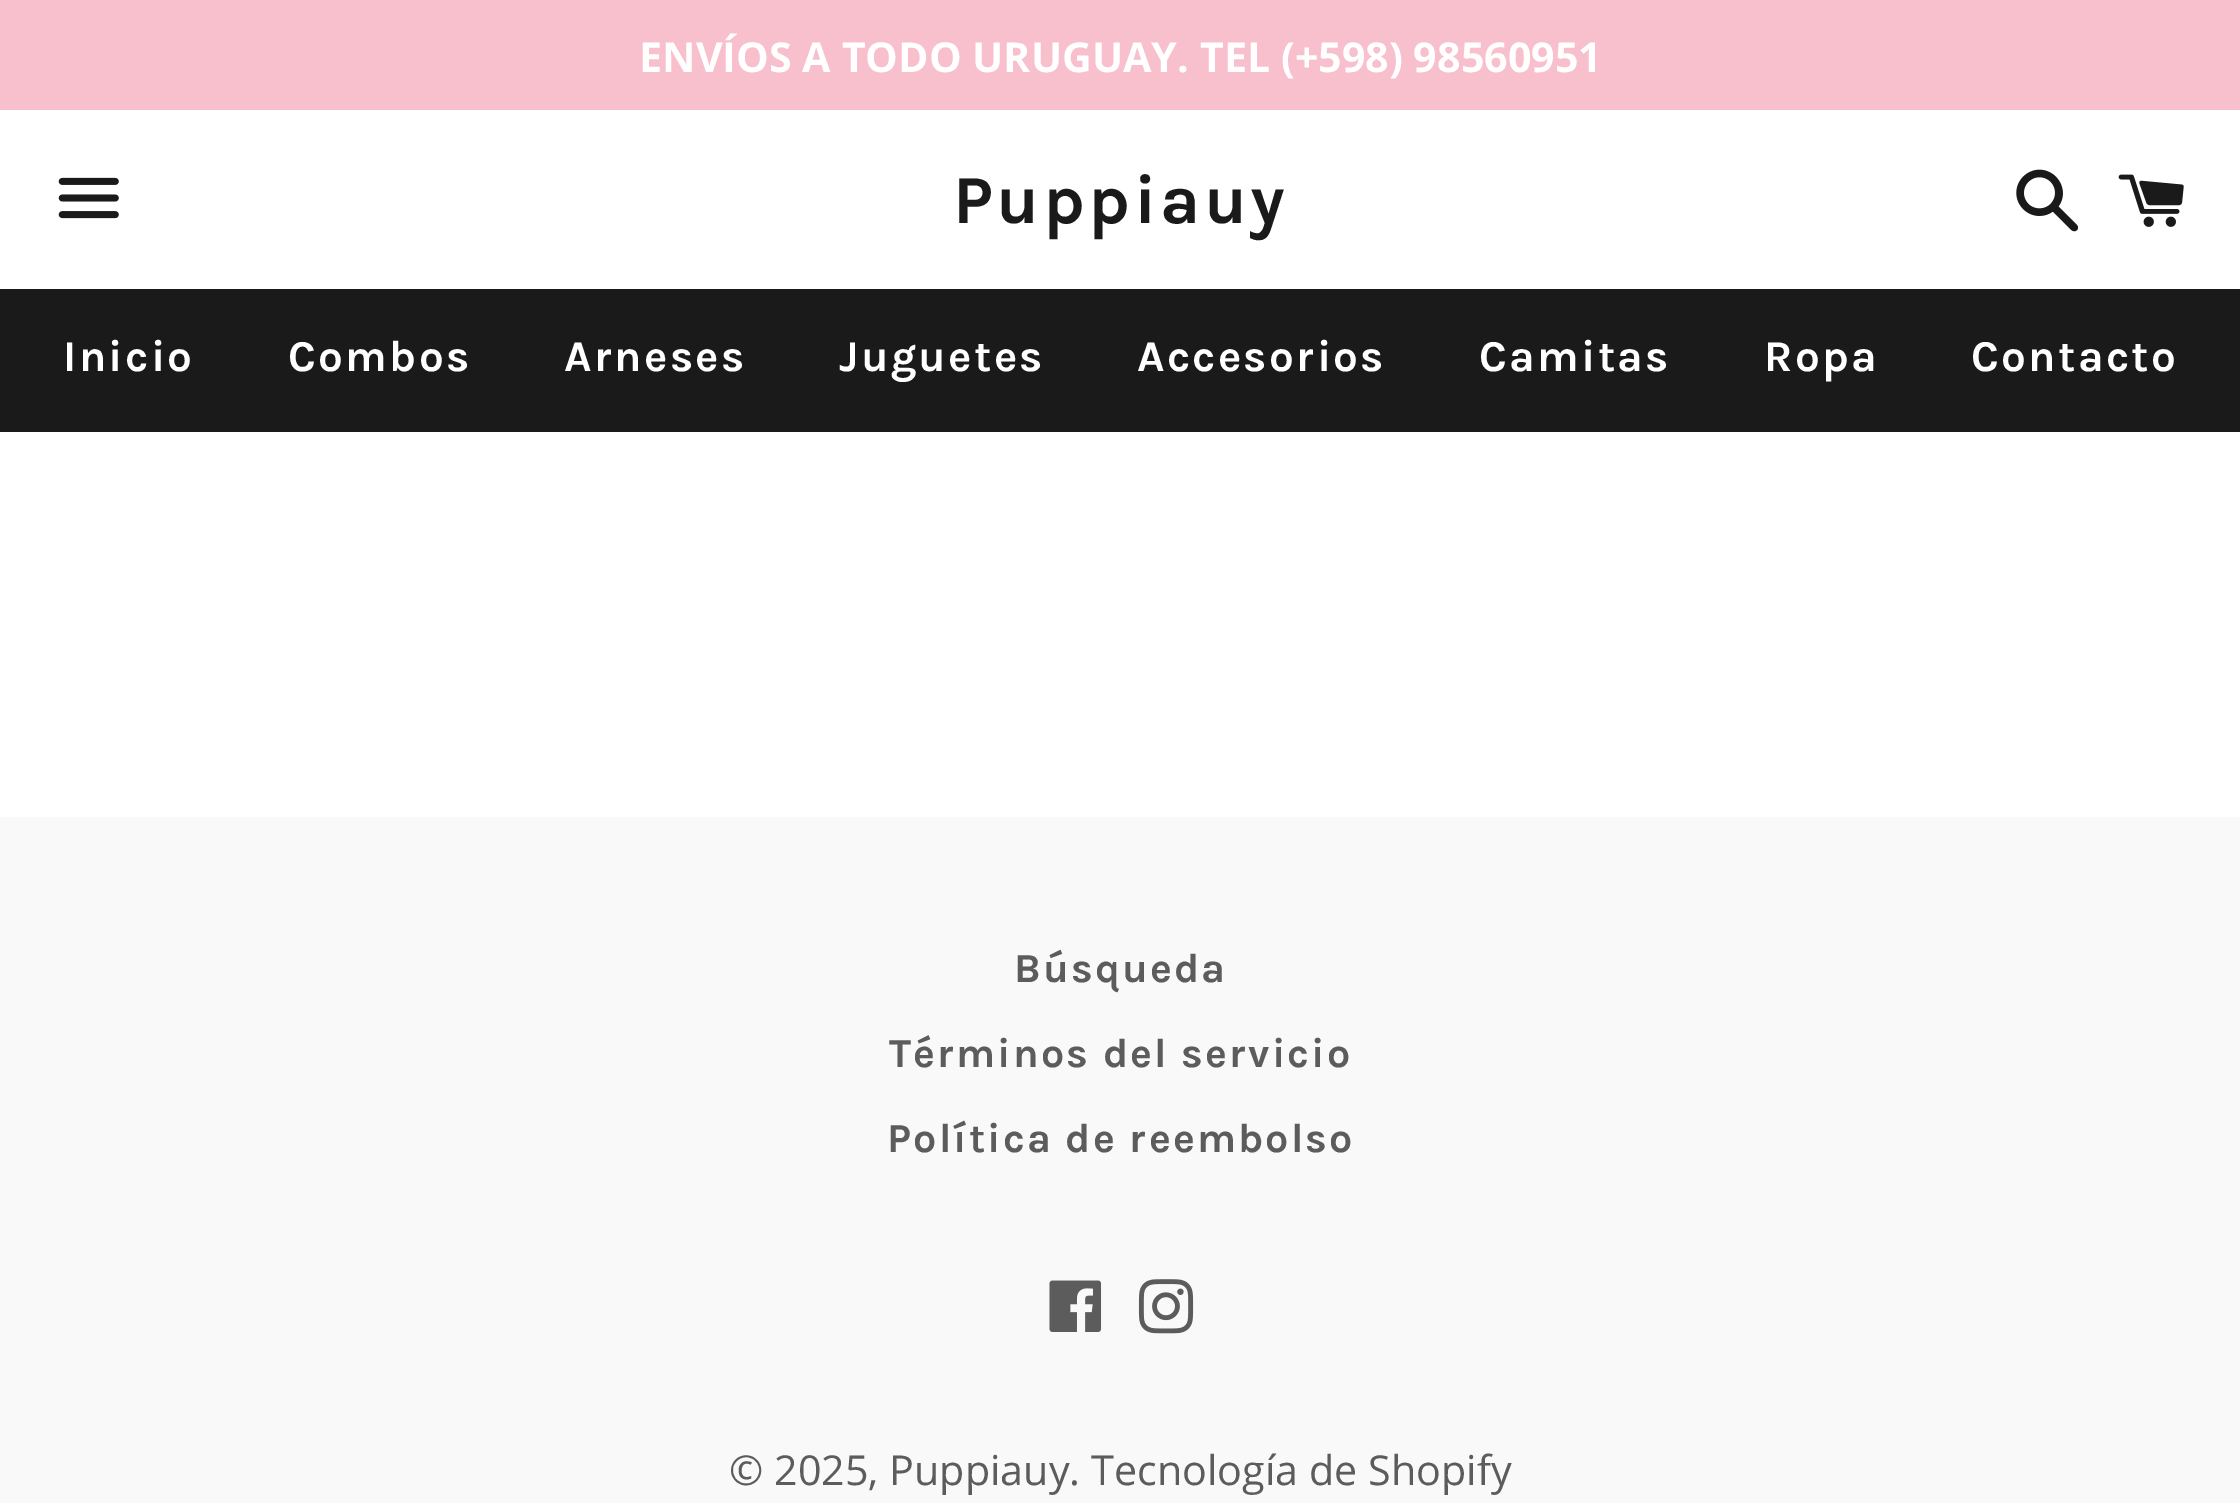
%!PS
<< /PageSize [2240 1503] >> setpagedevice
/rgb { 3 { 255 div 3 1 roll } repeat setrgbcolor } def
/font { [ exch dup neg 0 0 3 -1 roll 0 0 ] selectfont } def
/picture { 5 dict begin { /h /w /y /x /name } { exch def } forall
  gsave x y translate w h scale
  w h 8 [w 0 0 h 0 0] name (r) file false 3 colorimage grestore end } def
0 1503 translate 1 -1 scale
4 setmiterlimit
255 255 255 rgb
0 0 2240 1503 rectfill
247 192 204 rgb
0 0 2240 110 rectfill
(img/1.rgb) 58 177 61 42 picture
(img/2.rgb) 2016 169 63 63 picture
(img/3.rgb) 2118 174 66 53 picture
26 26 26 rgb
0 289 2240 143 rectfill
249 249 249 rgb
0 817 2240 686 rectfill
(img/4.rgb) 1049 1280 53 52 picture
(img/5.rgb) 1138 1279 56 55 picture
/OpenSans-Bold 41.25 font
255 255 255 rgb
639 72 moveto (ENVÍOS A TODO URUGUAY. TEL \(+598\) 98560951) show
/Karla-Bold 68.75 font
26 26 26 rgb
953 223 moveto 3.5 0 (Puppiauy) ashow
/Karla-Bold 44 font
255 255 255 rgb
63 371 moveto 2.25 0 (Inicio) ashow
288 371 moveto 2.25 0 (Combos) ashow
564 371 moveto 2.25 0 (Arneses) ashow
839 371 moveto 2.25 0 (Juguetes) ashow
1137 371 moveto 2.25 0 (Accesorios) ashow
1479 371 moveto 2.25 0 (Camitas) ashow
1764 371 moveto 2.25 0 (Ropa) ashow
1971 371 moveto 2.25 0 (Contacto) ashow
/Karla-Bold 41.25 font
92 92 92 rgb
1014 982 moveto 2.1 0 (Búsqueda) ashow
889 1067 moveto 2.1 0 (Términos del servicio) ashow
887 1152 moveto 2.1 0 (Política de reembolso) ashow
/OpenSans-Regular 41.25 font
729 1485 moveto (© 2025, Puppiauy. Tecnología de Shopify) show
showpage
